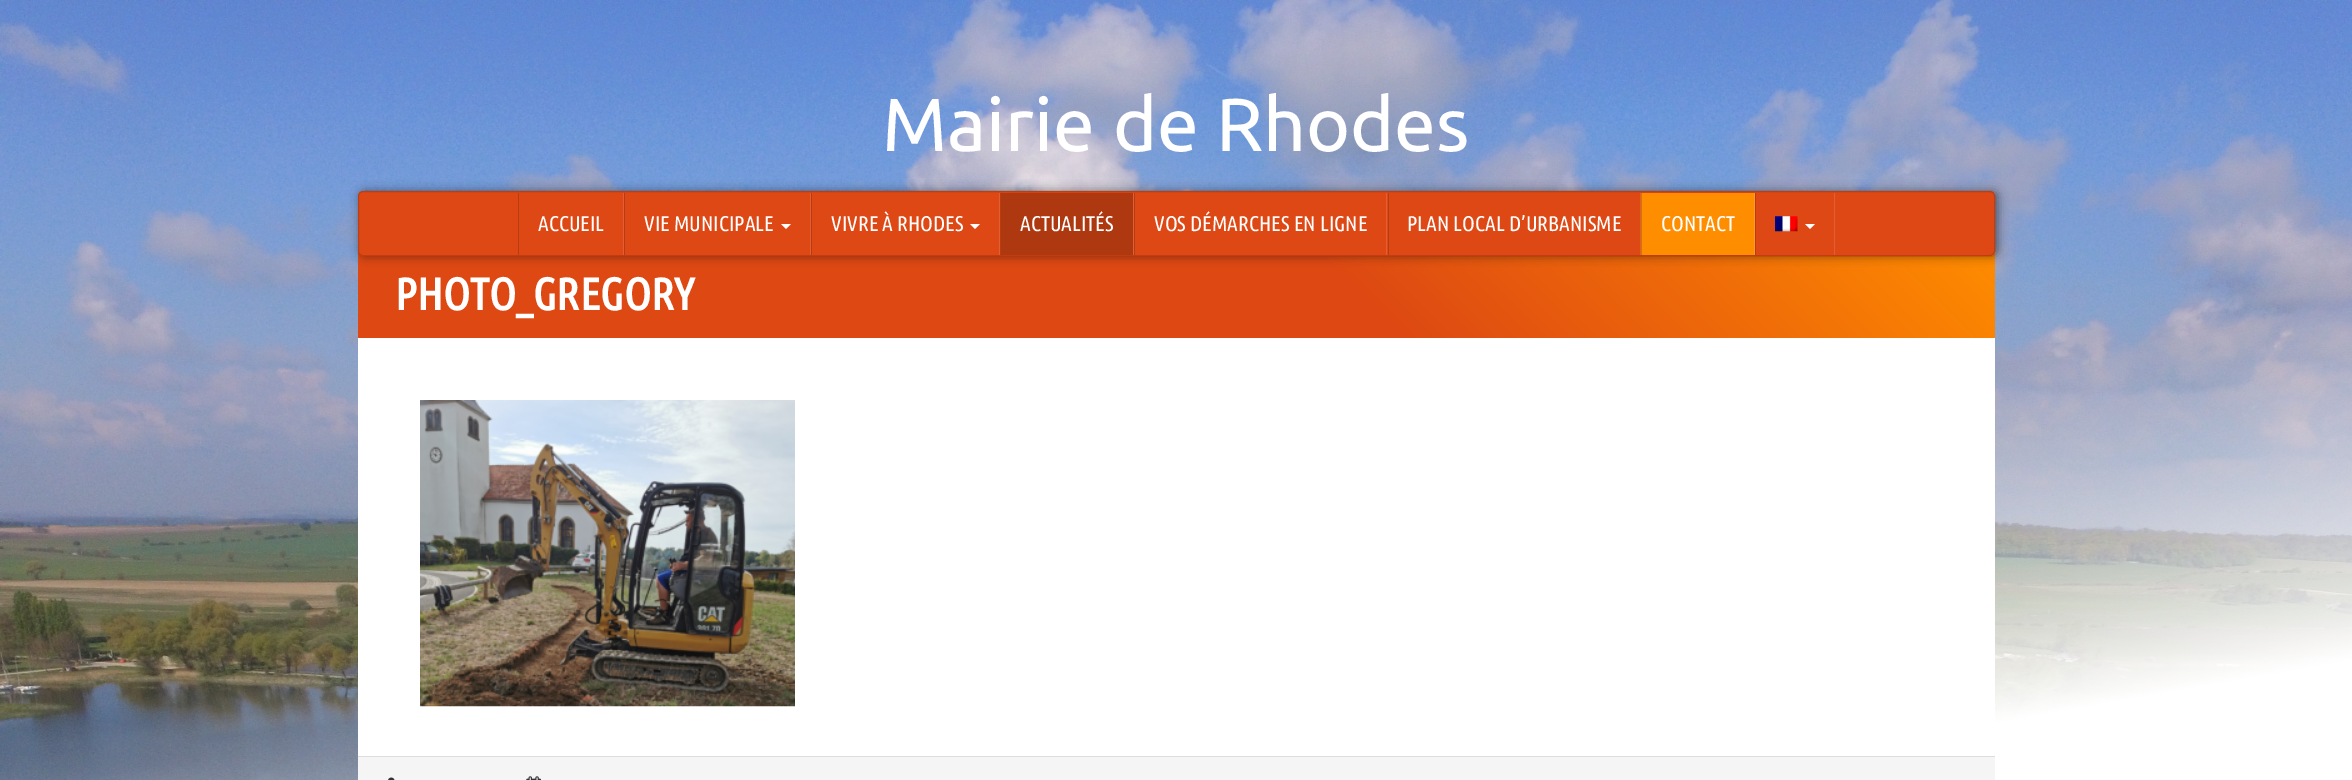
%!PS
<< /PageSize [2352 780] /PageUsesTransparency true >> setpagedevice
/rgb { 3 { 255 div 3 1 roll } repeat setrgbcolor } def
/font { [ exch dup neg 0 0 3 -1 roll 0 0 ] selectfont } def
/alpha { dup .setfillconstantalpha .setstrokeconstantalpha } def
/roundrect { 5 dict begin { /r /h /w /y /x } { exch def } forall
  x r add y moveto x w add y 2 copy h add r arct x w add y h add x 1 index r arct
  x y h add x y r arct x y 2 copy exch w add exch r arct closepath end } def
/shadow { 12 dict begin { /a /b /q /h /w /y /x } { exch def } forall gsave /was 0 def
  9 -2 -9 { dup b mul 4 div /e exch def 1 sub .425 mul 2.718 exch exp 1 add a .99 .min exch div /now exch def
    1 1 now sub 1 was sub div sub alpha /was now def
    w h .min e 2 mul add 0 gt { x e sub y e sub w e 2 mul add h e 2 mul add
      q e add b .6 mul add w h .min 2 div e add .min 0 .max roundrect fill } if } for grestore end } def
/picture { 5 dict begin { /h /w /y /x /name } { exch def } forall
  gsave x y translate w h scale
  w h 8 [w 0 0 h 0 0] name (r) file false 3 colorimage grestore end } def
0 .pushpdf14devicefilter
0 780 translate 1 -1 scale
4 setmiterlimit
255 255 255 rgb
0 0 2352 780 rectfill
(img/1.rgb) 0 0 2352 780 picture
gsave 358 251 moveto 1995 251 lineto 1995 338 lineto 358 338 lineto closepath clip newpath
<< /ShadingType 2 /ColorSpace /DeviceRGB /Coords [743 723 1609 -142] /Extend [true true] /Function << /FunctionType 3 /Domain [0 1] /Functions [<< /FunctionType 2 /Domain [0 1] /C0 [0.867 0.282 0.075] /C1 [0.867 0.282 0.075] /N 1 >> << /FunctionType 2 /Domain [0 1] /C0 [0.867 0.282 0.075] /C1 [1 0.553 0] /N 1 >>] /Bounds [0.6] /Encode [0 1 0 1] >> >> shfill grestore
0 0 0 rgb
360 191 1638 65 5 5 0.48 shadow
221 72 20 rgb
358.5 191.5 1636 64 4.5 roundrect gsave fill grestore
191 62 17 rgb
stroke
[
  [623 193 1 62 225 96 51]
  [518 193 1 62 183 60 17]
  [810 193 1 62 225 96 51]
  [624 193 1 62 183 60 17]
] { aload pop rgb rectfill } forall
255 255 255 rgb
781 224 moveto 791 224 lineto 786 229 lineto closepath fill
225 96 51 rgb
999 193 1 62 rectfill
183 60 17 rgb
811 193 1 62 rectfill
255 255 255 rgb
970 224 moveto 980 224 lineto 975 229 lineto closepath fill
[
  [1133 193 1 62 225 96 51]
  [1000 193 1 62 183 60 17]
  [1001 193 132 62 174 57 16]
  [1386 193 1 62 225 96 51]
  [1134 193 1 62 183 60 17]
  [1640 193 1 62 225 96 51]
  [1388 193 1 62 183 60 17]
  [1642 193 112 62 255 141 0]
  [1754 193 1 62 255 156 33]
  [1641 193 1 62 212 117 0]
  [1834 193 1 62 225 96 51]
  [1755 193 1 62 183 60 17]
] { aload pop rgb rectfill } forall
(img/2.rgb) 1775 216 23 16 picture
255 255 255 rgb
1805 224 moveto 1815 224 lineto 1810 229 lineto closepath fill
358 338 1637 418 rectfill
(img/3.rgb) 420 400 375 307 picture
245 245 245 rgb
358 757 1637 23 rectfill
221 221 221 rgb
358 756 1637 1 rectfill
(img/4.rgb) 388 777 7 3 picture
(img/5.rgb) 526 776 15 4 picture
/Ubuntu-Regular 75 font
255 255 255 rgb
882 151 moveto (Mairie de Rhodes) show
/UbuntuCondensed-Regular 21.25 font
[
  [(ACCUEIL) 538 231]
  [(VIE MUNICIPALE) 644 231]
  [(VIVRE À RHODES) 831 231]
  [(ACTUALITÉS) 1020 231]
  [(VOS DÉMARCHES EN LIGNE) 1154 231]
  [(PLAN LOCAL D’URBANISME) 1407 231]
  [(CONTACT) 1661 231]
] { aload pop moveto show } forall
/UbuntuCondensed-Bold 45 font
395 310 moveto (PHOTO_GREGORY) show
.poppdf14devicefilter showpage
